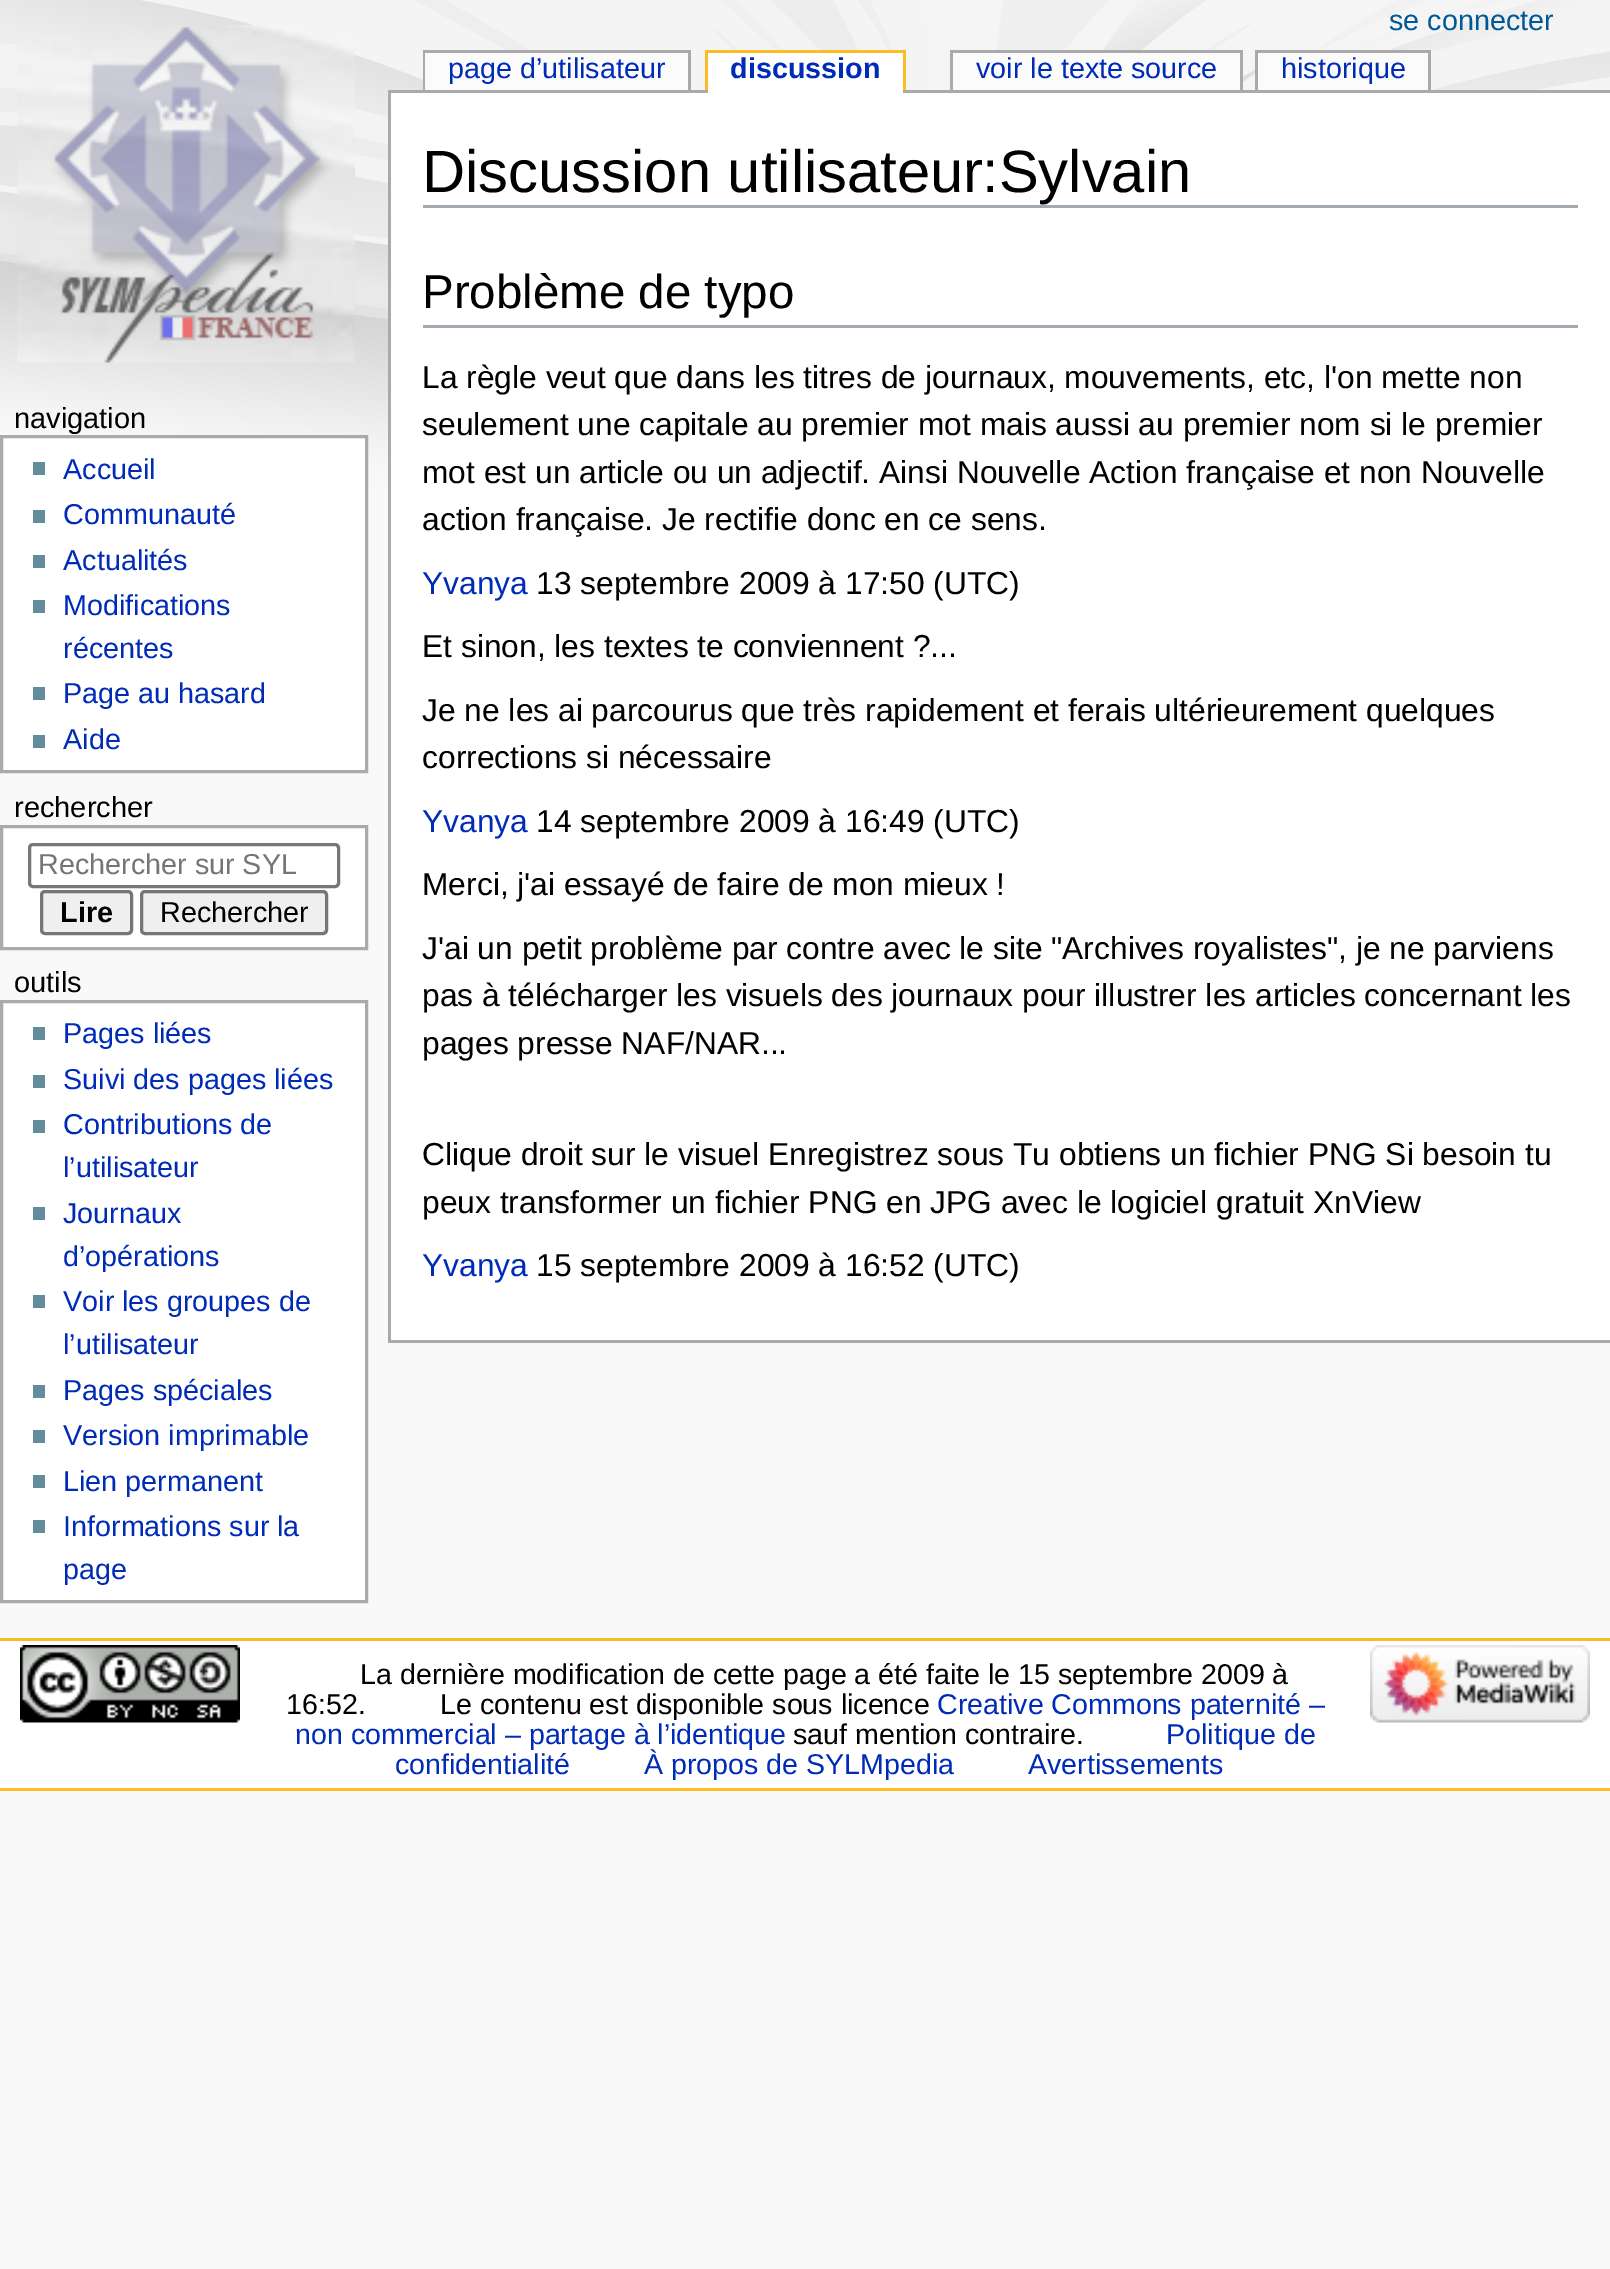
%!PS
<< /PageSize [1610 2269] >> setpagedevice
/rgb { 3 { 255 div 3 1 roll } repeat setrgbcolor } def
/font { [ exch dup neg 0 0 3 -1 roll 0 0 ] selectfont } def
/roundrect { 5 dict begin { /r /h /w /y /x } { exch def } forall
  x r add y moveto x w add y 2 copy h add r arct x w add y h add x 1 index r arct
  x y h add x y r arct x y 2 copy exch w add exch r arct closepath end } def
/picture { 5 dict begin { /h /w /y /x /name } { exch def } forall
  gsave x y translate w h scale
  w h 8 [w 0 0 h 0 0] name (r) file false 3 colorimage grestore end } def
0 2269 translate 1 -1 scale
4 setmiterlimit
249 249 249 rgb
0 0 1610 2269 rectfill
(img/1.rgb) 0 0 1610 525 picture
(img/2.rgb) 17 25 338 338 picture
[
  [423 50 267 3 170 170 170]
  [688 50 3 40 170 170 170]
  [423 50 3 40 170 170 170]
  [425 53 263 37 251 251 251]
  [705 50 200 3 250 189 35]
  [903 50 3 40 250 189 35]
  [705 50 3 40 250 189 35]
  [388 90 1222 3 170 170 170]
  [708 53 195 40 255 255 255]
  [950 50 293 3 170 170 170]
  [1240 50 3 40 170 170 170]
  [950 50 3 40 170 170 170]
  [953 53 287 37 251 251 251]
  [1255 50 175 3 170 170 170]
  [1428 50 3 40 170 170 170]
  [1255 50 3 40 170 170 170]
  [1258 53 170 37 251 251 251]
] { aload pop rgb rectfill } forall
255 255 255 rgb
1.5 436.5 moveto 366.5 436.5 lineto 366.5 771.5 lineto 1.5 771.5 lineto closepath gsave fill grestore
170 170 170 rgb
3 setlinewidth
stroke
[
  [33 462 12 13 99 140 156]
  [33 510 12 13 99 140 156]
  [33 555 12 13 99 140 156]
  [33 600 12 13 99 140 156]
  [33 687 12 13 99 140 156]
  [33 735 12 13 99 140 156]
] { aload pop rgb rectfill } forall
255 255 255 rgb
1.5 826.5 moveto 366.5 826.5 lineto 366.5 948.5 lineto 1.5 948.5 lineto closepath gsave fill grestore
170 170 170 rgb
stroke
118 118 118 rgb
29.5 844.5 309 42 3.5 roundrect stroke
239 239 239 rgb
41.5 891.5 90 42 3.5 roundrect gsave fill grestore
118 118 118 rgb
stroke
239 239 239 rgb
141.5 891.5 185 42 3.5 roundrect gsave fill grestore
118 118 118 rgb
stroke
255 255 255 rgb
1.5 1001.5 moveto 366.5 1001.5 lineto 366.5 1601.5 lineto 1.5 1601.5 lineto closepath gsave fill grestore
170 170 170 rgb
stroke
[
  [33 1027 12 13 99 140 156]
  [33 1075 12 13 99 140 156]
  [33 1120 12 13 99 140 156]
  [33 1207 12 13 99 140 156]
  [33 1295 12 13 99 140 156]
  [33 1385 12 13 99 140 156]
  [33 1430 12 13 99 140 156]
  [33 1475 12 13 99 140 156]
  [33 1520 12 13 99 140 156]
  [391 93 1219 1247 255 255 255]
  [388 1340 1222 3 170 170 170]
  [388 90 3 1253 170 170 170]
  [423 205 1155 3 162 169 177]
  [423 325 1155 3 162 169 177]
  [0 1641 1610 147 255 255 255]
  [0 1638 1610 3 250 189 35]
  [0 1788 1610 3 250 189 35]
] { aload pop rgb rectfill } forall
(img/3.rgb) 20 1645 220 78 picture
(img/4.rgb) 1370 1645 220 78 picture
/LiberationSans-Regular 28.75 font
0 88 150 rgb
1389 30 moveto (se connecter) show
0 43 184 rgb
448 78 moveto (page d’utilisateur) show
/LiberationSans-Bold 28.75 font
730 78 moveto (discussion) show
/LiberationSans-Regular 28.75 font
976 78 moveto (voir le texte source) show
1281 78 moveto (historique) show
/LiberationSans-Regular 29 font
0 0 0 rgb
14 428 moveto (navigation) show
/LiberationSans-Regular 28.75 font
0 43 184 rgb
[
  [(Accueil) 63 479]
  [(Communauté) 63 524]
  [(Actualités) 63 570]
  [(Modifications) 63 615]
  [(récentes) 63 658]
  [(Page au hasard) 63 703]
  [(Aide) 63 749]
] { aload pop moveto show } forall
/LiberationSans-Regular 29 font
0 0 0 rgb
14 817 moveto (rechercher) show
/LiberationSans-Regular 28.75 font
117 117 117 rgb
38 874 moveto (Rechercher sur SYL) show
/LiberationSans-Bold 28.75 font
0 0 0 rgb
60 922 moveto (Lire) show
/LiberationSans-Regular 28.75 font
160 922 moveto (Rechercher) show
/LiberationSans-Regular 29 font
14 992 moveto (outils) show
/LiberationSans-Regular 28.75 font
0 43 184 rgb
[
  [(Pages liées) 63 1043]
  [(Suivi des pages liées) 63 1089]
  [(Contributions de) 63 1134]
  [(l’utilisateur) 63 1177]
  [(Journaux) 63 1223]
  [(d’opérations) 63 1266]
  [(Voir les groupes de) 63 1311]
  [(l’utilisateur) 63 1354]
  [(Pages spéciales) 63 1400]
  [(Version imprimable) 63 1445]
  [(Lien permanent) 63 1491]
  [(Informations sur la) 63 1536]
  [(page) 63 1579]
] { aload pop moveto show } forall
/LiberationSans-Regular 59.75 font
0 0 0 rgb
422 192 moveto (Discussion utilisateur) show
982 192 moveto (:Sylvain) show
/LiberationSans-Regular 47.5 font
422 308 moveto (Problème de typo) show
/LiberationSans-Regular 31.75 font
[
  [(La règle veut que dans les titres de journaux, mouvements, etc, l'on mette non) 422 388]
  [(seulement une capitale au premier mot mais aussi au premier nom si le premier) 422 435]
  [(mot est un article ou un adjectif. Ainsi Nouvelle Action française et non Nouvelle) 422 483]
  [(action française. Je rectifie donc en ce sens.) 422 530]
] { aload pop moveto show } forall
0 43 184 rgb
422 594 moveto (Yvanya) show
0 0 0 rgb
[
  [(13 septembre 2009 à 17:50 \(UTC\)) 536 594]
  [(Et sinon, les textes te conviennent ?...) 422 657]
  [(Je ne les ai parcourus que très rapidement et ferais ultérieurement quelques) 422 721]
  [(corrections si nécessaire) 422 768]
] { aload pop moveto show } forall
0 43 184 rgb
422 832 moveto (Yvanya) show
0 0 0 rgb
[
  [(14 septembre 2009 à 16:49 \(UTC\)) 536 832]
  [(Merci, j'ai essayé de faire de mon mieux !) 422 895]
  [(J'ai un petit problème par contre avec le site "Archives royalistes", je ne parviens) 422 959]
  [(pas à télécharger les visuels des journaux pour illustrer les articles concernant les) 422 1006]
  [(pages presse NAF/NAR...) 422 1054]
  [(Clique droit sur le visuel Enregistrez sous Tu obtiens un fichier PNG Si besoin tu) 422 1165]
  [(peux transformer un fichier PNG en JPG avec le logiciel gratuit XnView) 422 1213]
] { aload pop moveto show } forall
0 43 184 rgb
422 1276 moveto (Yvanya) show
0 0 0 rgb
536 1276 moveto (15 septembre 2009 à 16:52 \(UTC\)) show
/LiberationSans-Regular 28.6 font
[
  [(La dernière modification de cette page a été faite le 15 septembre 2009 à) 360 1684]
  [(16:52.) 286 1714]
  [(Le contenu est disponible sous licence) 440 1714]
] { aload pop moveto show } forall
0 43 184 rgb
937 1714 moveto (Creative Commons paternité –) show
295 1744 moveto (non commercial – partage à l’identique) show
0 0 0 rgb
793 1744 moveto (sauf mention contraire.) show
0 43 184 rgb
[
  [(Politique de) 1166 1744]
  [(confidentialité) 395 1774]
  [(À propos de SYLMpedia) 644 1774]
  [(Avertissements) 1028 1774]
] { aload pop moveto show } forall
showpage
